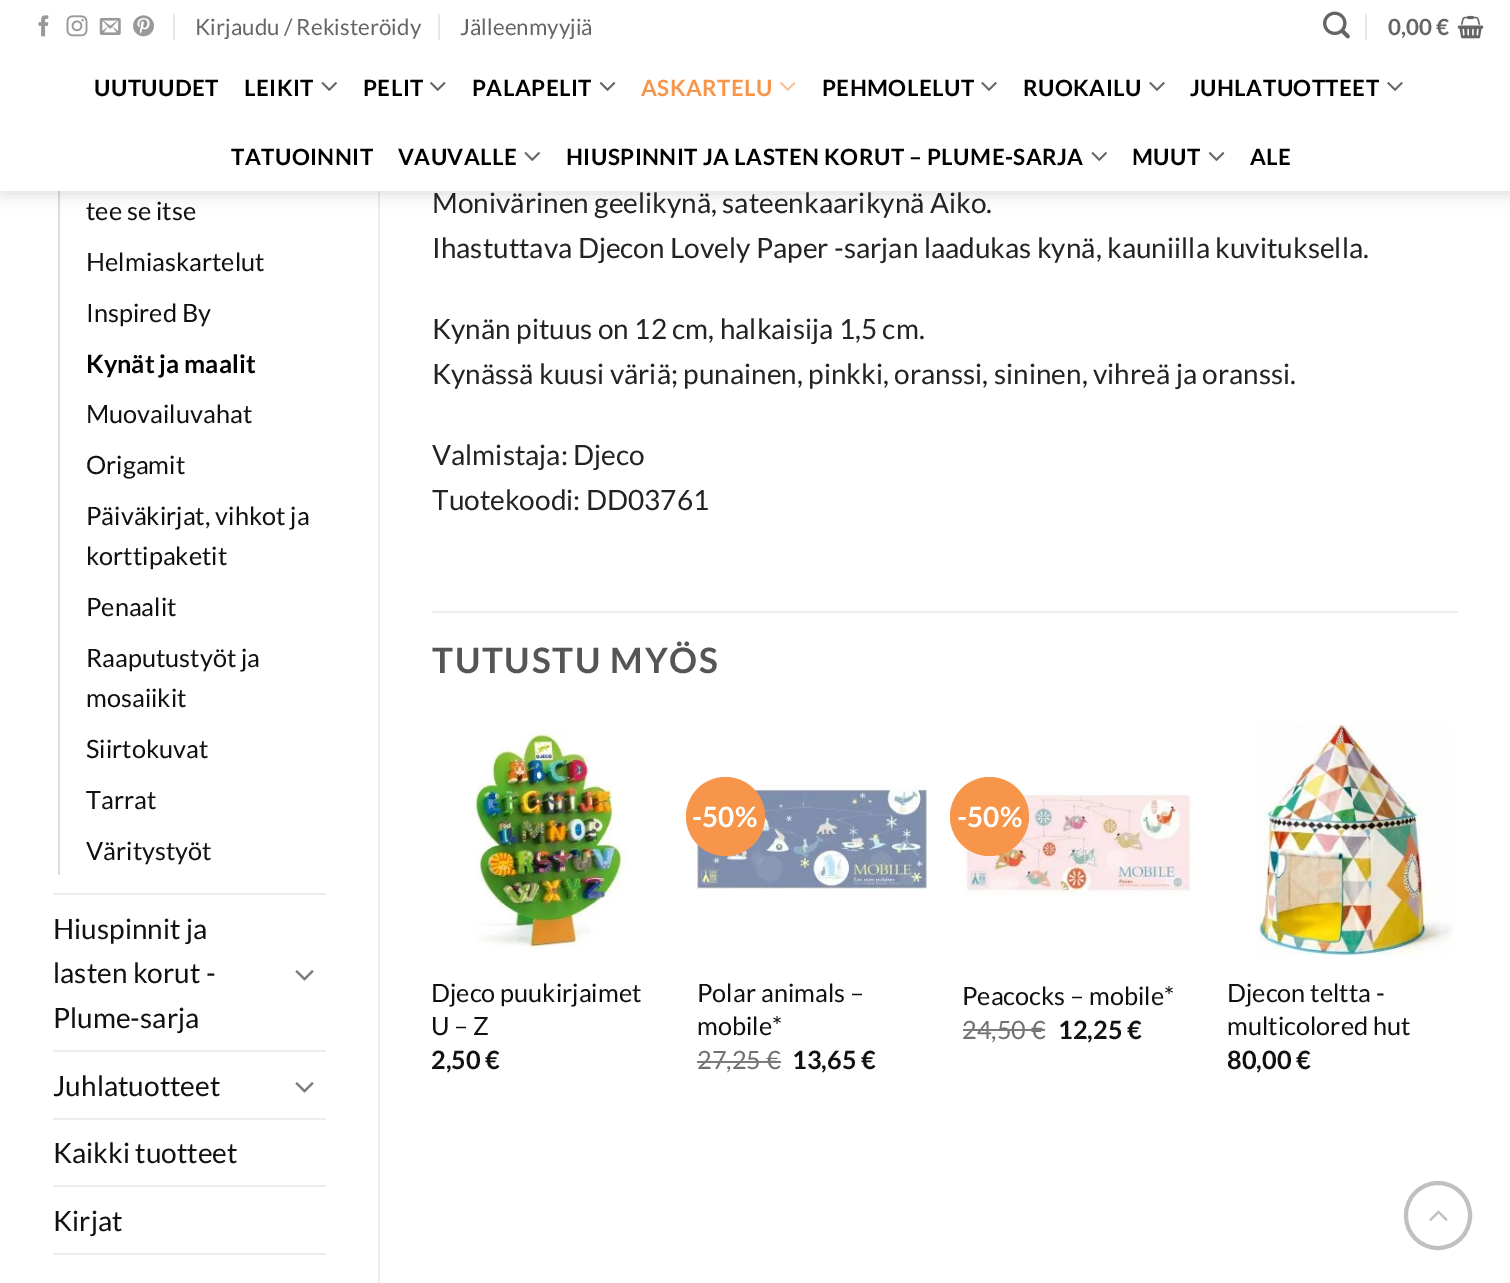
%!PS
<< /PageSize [1510 1283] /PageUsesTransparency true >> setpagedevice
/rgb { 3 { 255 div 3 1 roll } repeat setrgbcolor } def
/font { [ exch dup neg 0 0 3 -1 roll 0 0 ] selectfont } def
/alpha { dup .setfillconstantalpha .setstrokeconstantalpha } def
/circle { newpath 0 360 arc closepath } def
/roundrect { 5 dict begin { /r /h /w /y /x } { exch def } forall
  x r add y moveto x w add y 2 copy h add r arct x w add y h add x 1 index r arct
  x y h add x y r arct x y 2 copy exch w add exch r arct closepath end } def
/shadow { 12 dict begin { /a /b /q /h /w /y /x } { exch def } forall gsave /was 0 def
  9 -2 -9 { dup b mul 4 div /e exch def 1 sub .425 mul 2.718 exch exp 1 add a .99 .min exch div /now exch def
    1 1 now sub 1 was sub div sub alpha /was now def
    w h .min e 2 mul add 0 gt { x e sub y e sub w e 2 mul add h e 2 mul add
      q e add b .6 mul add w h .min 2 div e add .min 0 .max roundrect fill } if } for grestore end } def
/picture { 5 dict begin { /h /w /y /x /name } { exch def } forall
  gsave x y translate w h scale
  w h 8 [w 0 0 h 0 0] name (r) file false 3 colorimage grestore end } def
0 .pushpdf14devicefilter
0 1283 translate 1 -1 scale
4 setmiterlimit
255 255 255 rgb
0 0 1510 1283 rectfill
221 221 221 rgb
58 191 2 684 rectfill
236 236 236 rgb
378 191 2 1092 rectfill
0 0 0 rgb
2 2 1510 191 0 9 0.15 shadow
255 255 255 rgb
0 0 1510 191 rectfill
(img/1.rgb) 38 15 11 22 picture
(img/2.rgb) 66 15 22 22 picture
(img/3.rgb) 99 17 22 18 picture
(img/4.rgb) 133 15 21 22 picture
230 230 230 rgb
173 14 2 26 rectfill
438 14 2 26 rectfill
(img/5.rgb) 1323 11 27 28 picture
1365 14 2 26 rectfill
(img/6.rgb) 1457 15 27 24 picture
(img/7.rgb) 321 82 16 9 picture
(img/8.rgb) 430 82 16 9 picture
(img/9.rgb) 599 82 17 9 picture
(img/10.rgb) 780 82 16 9 picture
(img/11.rgb) 981 82 16 9 picture
(img/11.rgb) 1149 82 16 9 picture
(img/11.rgb) 1387 82 16 9 picture
(img/7.rgb) 524 152 16 9 picture
(img/7.rgb) 1091 152 16 9 picture
(img/9.rgb) 1208 152 17 9 picture
236 236 236 rgb
53 893 273 2 rectfill
(img/12.rgb) 295 970 19 11 picture
53 1050 273 2 rectfill
(img/12.rgb) 295 1082 19 11 picture
[
  [53 1118 273 2 236 236 236]
  [53 1185 273 2 236 236 236]
  [53 1253 273 2 236 236 236]
  [432 611 1026 2 236 236 236]
] { aload pop rgb rectfill } forall
(img/13.rgb) 473 726 154 223 picture
(img/14.rgb) 696 785 231 105 picture
247 149 74 rgb
725.5 816.5 39.5 circle fill
(img/15.rgb) 963 792 230 105 picture
989.5 816.5 39.5 circle fill
(img/16.rgb) 1256 724 198 232 picture
192 192 192 rgb
4 setlinewidth
1406 1183 64 65 32 roundrect stroke
(img/17.rgb) 1429 1210 19 11 picture
/Lato-Regular 22.4 font
101 101 101 rgb
195 35 moveto (Kirjaudu / Rekisteröidy) show
460 35 moveto (Jälleenmyyjiä) show
/Lato-Bold 22.4 font
1388 35 moveto (0,00 €) show
0 0 0 rgb
94 96 moveto 0.45 0 (UUTUUDET) ashow
244 96 moveto 0.45 0 (LEIKIT) ashow
363 96 moveto 0.45 0 (PELIT) ashow
472 96 moveto 0.45 0 (PALAPELIT) ashow
247 149 74 rgb
641 96 moveto 0.45 0 (ASKARTELU) ashow
0 0 0 rgb
822 96 moveto 0.45 0 (PEHMOLELUT) ashow
1023 96 moveto 0.45 0 (RUOKAILU) ashow
1190 96 moveto 0.45 0 (JUHLATUOTTEET) ashow
231 165 moveto 0.45 0 (TATUOINNIT) ashow
398 165 moveto 0.45 0 (VAUVALLE) ashow
566 165 moveto 0.45 0 (HIUSPINNIT JA LASTEN KORUT – PLUME-SARJA) ashow
1132 165 moveto 0.45 0 (MUUT) ashow
1250 165 moveto 0.45 0 (ALE) ashow
/Lato-Regular 25.25 font
17 17 17 rgb
[
  [(tee se itse) 86 220]
  [(Helmiaskartelut) 86 271]
  [(Inspired By) 86 322]
] { aload pop moveto show } forall
/Lato-Bold 25.25 font
0 0 0 rgb
86 373 moveto (Kynät ja maalit) show
/Lato-Regular 25.25 font
17 17 17 rgb
[
  [(Muovailuvahat) 86 423]
  [(Origamit) 86 474]
  [(Päiväkirjat, vihkot ja) 86 525]
  [(korttipaketit) 86 565]
  [(Penaalit) 86 616]
  [(Raaputustyöt ja) 86 667]
  [(mosaiikit) 86 707]
  [(Siirtokuvat) 86 758]
  [(Tarrat) 86 809]
  [(Väritystyöt) 86 860]
] { aload pop moveto show } forall
/Lato-Regular 28 font
[
  [(Hiuspinnit ja) 53 939]
  [(lasten korut -) 53 983]
  [(Plume-sarja) 53 1028]
  [(Juhlatuotteet) 53 1096]
  [(Kaikki tuotteet) 53 1163]
  [(Kirjat) 53 1231]
] { aload pop moveto show } forall
36 35 35 rgb
[
  [(Monivärinen geelikynä, sateenkaarikynä Aiko.) 432 213]
  [(Ihastuttava Djecon Lovely Paper -sarjan laadukas kynä, kauniilla kuvituksella.) 432 258]
  [(Kynän pituus on 12 cm, halkaisija 1,5 cm.) 432 339]
  [(Kynässä kuusi väriä; punainen, pinkki, oranssi, sininen, vihreä ja oranssi.) 432 384]
  [(Valmistaja: Djeco) 432 465]
  [(Tuotekoodi: DD03761) 432 510]
] { aload pop moveto show } forall
/Lato-Bold 35 font
85 85 85 rgb
432 673 moveto 1.75 0 (TUTUSTU MYÖS) ashow
/Lato-Regular 25.25 font
17 17 17 rgb
431 1002 moveto (Djeco puukirjaimet) show
431 1035 moveto (U – Z) show
/Lato-Bold 25.25 font
431 1069 moveto (2,50 €) show
/Lato-Bold 28 font
255 255 255 rgb
692 827 moveto (-50%) show
/Lato-Regular 25.25 font
17 17 17 rgb
697 1002 moveto (Polar animals –) show
697 1035 moveto (mobile*) show
112 112 112 rgb
697 1069 moveto (27,25 €) show
124 123 123 rgb
697 1061 84 2 rectfill
/Lato-Bold 25.25 font
17 17 17 rgb
792 1069 moveto (13,65 €) show
/Lato-Bold 28 font
255 255 255 rgb
957 827 moveto (-50%) show
/Lato-Regular 25.25 font
17 17 17 rgb
962 1005 moveto (Peacocks – mobile*) show
112 112 112 rgb
962 1039 moveto (24,50) show
124 123 123 rgb
963 1029 68 2 rectfill
112 112 112 rgb
1031 1039 moveto (€) show
124 123 123 rgb
1031 1029 14 2 rectfill
/Lato-Bold 25.25 font
17 17 17 rgb
1058 1039 moveto (12,25 €) show
/Lato-Regular 25.25 font
1227 1002 moveto (Djecon teltta -) show
1227 1035 moveto (multicolored hut) show
/Lato-Bold 25.25 font
1227 1069 moveto (80,00 €) show
.poppdf14devicefilter showpage
